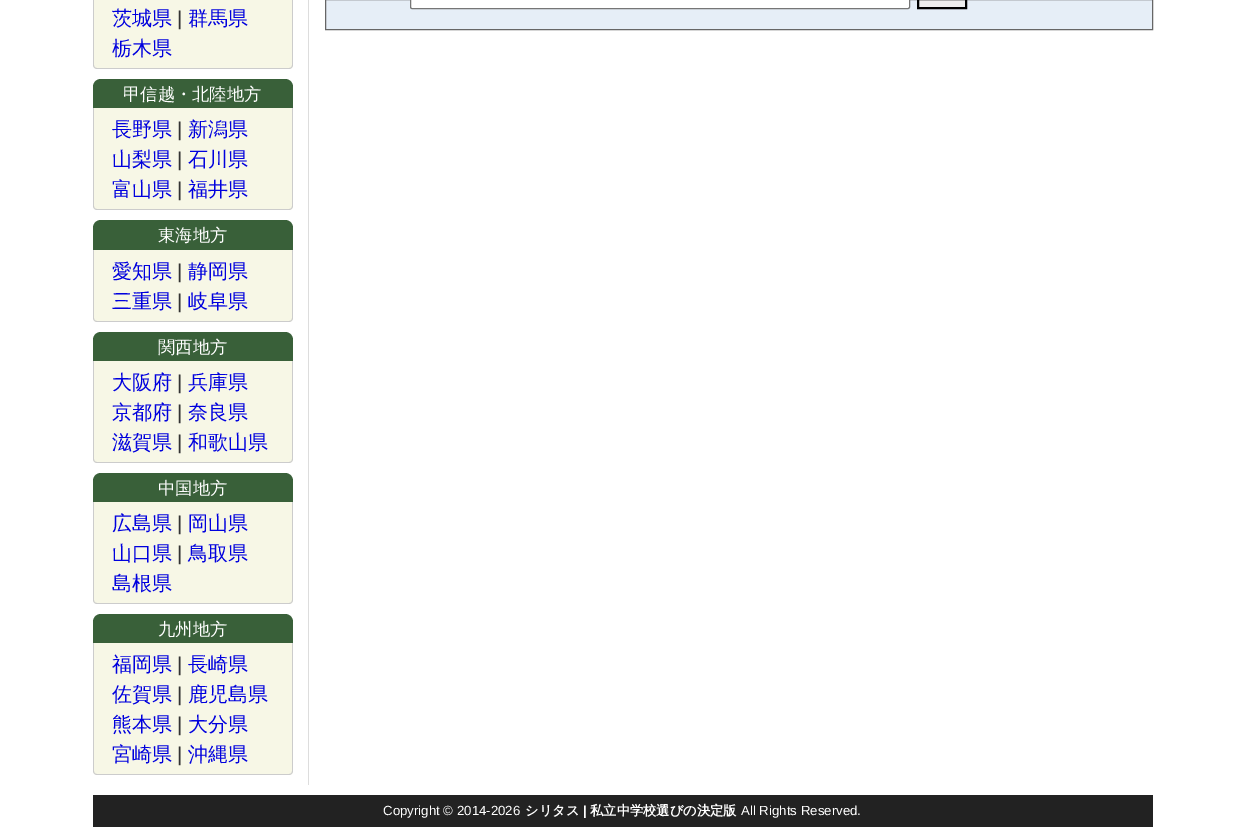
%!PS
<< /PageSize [1245 835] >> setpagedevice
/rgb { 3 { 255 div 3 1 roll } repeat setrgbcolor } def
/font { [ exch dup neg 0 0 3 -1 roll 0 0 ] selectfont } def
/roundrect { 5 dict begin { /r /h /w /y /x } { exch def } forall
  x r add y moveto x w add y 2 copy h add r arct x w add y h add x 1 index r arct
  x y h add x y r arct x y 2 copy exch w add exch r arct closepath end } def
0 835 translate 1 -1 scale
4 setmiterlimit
255 255 255 rgb
0 0 1245 835 rectfill
221 221 221 rgb
308 0 1 785 rectfill
247 247 230 rgb
93 -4 moveto 293 -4 lineto 293 65 lineto 293 67 291 69 289 69 curveto 97 69 lineto 95 69 93 67 93 65 curveto closepath fill
204 204 204 rgb
93 -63 moveto 293 -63 lineto 293 65 lineto 293 67 291 69 289 69 curveto 97 69 lineto 95 69 93 67 93 65 curveto closepath 94 -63 moveto 292 -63 lineto 292 65 lineto 292 67 291 68 289 68 curveto 97 68 lineto 95 68 94 67 94 65 curveto closepath eofill
57 96 57 rgb
101 79 moveto 285 79 lineto 289.5 79 293 82.5 293 87 curveto 293 108 lineto 93 108 lineto 93 87 lineto 93 82.5 96.5 79 101 79 curveto closepath fill
247 247 230 rgb
93 108 moveto 293 108 lineto 293 206 lineto 293 208 291 210 289 210 curveto 97 210 lineto 95 210 93 208 93 206 curveto closepath fill
204 204 204 rgb
93 108 moveto 293 108 lineto 293 206 lineto 293 208 291 210 289 210 curveto 97 210 lineto 95 210 93 208 93 206 curveto closepath 94 108 moveto 292 108 lineto 292 206 lineto 292 208 291 209 289 209 curveto 97 209 lineto 95 209 94 208 94 206 curveto closepath eofill
57 96 57 rgb
101 220 moveto 285 220 lineto 289.5 220 293 223.5 293 228 curveto 293 250 lineto 93 250 lineto 93 228 lineto 93 223.5 96.5 220 101 220 curveto closepath fill
247 247 230 rgb
93 250 moveto 293 250 lineto 293 318 lineto 293 320 291 322 289 322 curveto 97 322 lineto 95 322 93 320 93 318 curveto closepath fill
204 204 204 rgb
93 250 moveto 293 250 lineto 293 318 lineto 293 320 291 322 289 322 curveto 97 322 lineto 95 322 93 320 93 318 curveto closepath 94 250 moveto 292 250 lineto 292 318 lineto 292 320 291 321 289 321 curveto 97 321 lineto 95 321 94 320 94 318 curveto closepath eofill
57 96 57 rgb
101 332 moveto 285 332 lineto 289.5 332 293 335.5 293 340 curveto 293 361 lineto 93 361 lineto 93 340 lineto 93 335.5 96.5 332 101 332 curveto closepath fill
247 247 230 rgb
93 361 moveto 293 361 lineto 293 459 lineto 293 461 291 463 289 463 curveto 97 463 lineto 95 463 93 461 93 459 curveto closepath fill
204 204 204 rgb
93 361 moveto 293 361 lineto 293 459 lineto 293 461 291 463 289 463 curveto 97 463 lineto 95 463 93 461 93 459 curveto closepath 94 361 moveto 292 361 lineto 292 459 lineto 292 461 291 462 289 462 curveto 97 462 lineto 95 462 94 461 94 459 curveto closepath eofill
57 96 57 rgb
101 473 moveto 285 473 lineto 289.5 473 293 476.5 293 481 curveto 293 502 lineto 93 502 lineto 93 481 lineto 93 476.5 96.5 473 101 473 curveto closepath fill
247 247 230 rgb
93 502 moveto 293 502 lineto 293 600 lineto 293 602 291 604 289 604 curveto 97 604 lineto 95 604 93 602 93 600 curveto closepath fill
204 204 204 rgb
93 502 moveto 293 502 lineto 293 600 lineto 293 602 291 604 289 604 curveto 97 604 lineto 95 604 93 602 93 600 curveto closepath 94 502 moveto 292 502 lineto 292 600 lineto 292 602 291 603 289 603 curveto 97 603 lineto 95 603 94 602 94 600 curveto closepath eofill
57 96 57 rgb
101 614 moveto 285 614 lineto 289.5 614 293 617.5 293 622 curveto 293 643 lineto 93 643 lineto 93 622 lineto 93 617.5 96.5 614 101 614 curveto closepath fill
247 247 230 rgb
93 643 moveto 293 643 lineto 293 771 lineto 293 773 291 775 289 775 curveto 97 775 lineto 95 775 93 773 93 771 curveto closepath fill
204 204 204 rgb
93 643 moveto 293 643 lineto 293 771 lineto 293 773 291 775 289 775 curveto 97 775 lineto 95 775 93 773 93 771 curveto closepath 94 643 moveto 292 643 lineto 292 771 lineto 292 773 291 774 289 774 curveto 97 774 lineto 95 774 94 773 94 771 curveto closepath eofill
230 238 247 rgb
325.5 -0.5 moveto 1152.5 -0.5 lineto 1152.5 29.5 lineto 325.5 29.5 lineto closepath gsave fill grestore
102 102 102 rgb
stroke
255 255 255 rgb
410.5 -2.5 499 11 1.5 roundrect gsave fill grestore
118 118 118 rgb
stroke
238 238 238 rgb
918 -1 moveto 966 -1 lineto 966 8 lineto 918 8 lineto closepath gsave fill grestore
0 0 0 rgb
2 setlinewidth
stroke
34 34 34 rgb
93 795 1060 32 rectfill
/WenQuanYiZenHei-Medium 20 font
0 0 222 rgb
112 25 moveto (茨城県) show
/LiberationSans-Regular 20 font
51 51 51 rgb
177 25 moveto (|) show
/WenQuanYiZenHei-Medium 20 font
0 0 222 rgb
188 25 moveto (群馬県) show
112 55 moveto (栃木県) show
/WenQuanYiZenHei-Medium 17.25 font
255 255 255 rgb
123 100 moveto (甲信越・北陸地方) show
/WenQuanYiZenHei-Medium 20 font
0 0 222 rgb
112 136 moveto (長野県) show
/LiberationSans-Regular 20 font
51 51 51 rgb
177 136 moveto (|) show
/WenQuanYiZenHei-Medium 20 font
0 0 222 rgb
188 136 moveto (新潟県) show
112 166 moveto (山梨県) show
/LiberationSans-Regular 20 font
51 51 51 rgb
177 166 moveto (|) show
/WenQuanYiZenHei-Medium 20 font
0 0 222 rgb
188 166 moveto (石川県) show
112 196 moveto (富山県) show
/LiberationSans-Regular 20 font
51 51 51 rgb
177 196 moveto (|) show
/WenQuanYiZenHei-Medium 20 font
0 0 222 rgb
188 196 moveto (福井県) show
/WenQuanYiZenHei-Medium 17.25 font
255 255 255 rgb
158 241 moveto (東海地方) show
/WenQuanYiZenHei-Medium 20 font
0 0 222 rgb
112 278 moveto (愛知県) show
/LiberationSans-Regular 20 font
51 51 51 rgb
177 278 moveto (|) show
/WenQuanYiZenHei-Medium 20 font
0 0 222 rgb
188 278 moveto (静岡県) show
112 308 moveto (三重県) show
/LiberationSans-Regular 20 font
51 51 51 rgb
177 308 moveto (|) show
/WenQuanYiZenHei-Medium 20 font
0 0 222 rgb
188 308 moveto (岐阜県) show
/WenQuanYiZenHei-Medium 17.25 font
255 255 255 rgb
158 353 moveto (関西地方) show
/WenQuanYiZenHei-Medium 20 font
0 0 222 rgb
112 389 moveto (大阪府) show
/LiberationSans-Regular 20 font
51 51 51 rgb
177 389 moveto (|) show
/WenQuanYiZenHei-Medium 20 font
0 0 222 rgb
188 389 moveto (兵庫県) show
112 419 moveto (京都府) show
/LiberationSans-Regular 20 font
51 51 51 rgb
177 419 moveto (|) show
/WenQuanYiZenHei-Medium 20 font
0 0 222 rgb
188 419 moveto (奈良県) show
112 449 moveto (滋賀県) show
/LiberationSans-Regular 20 font
51 51 51 rgb
177 449 moveto (|) show
/WenQuanYiZenHei-Medium 20 font
0 0 222 rgb
188 449 moveto (和歌山県) show
/WenQuanYiZenHei-Medium 17.25 font
255 255 255 rgb
158 494 moveto (中国地方) show
/WenQuanYiZenHei-Medium 20 font
0 0 222 rgb
112 530 moveto (広島県) show
/LiberationSans-Regular 20 font
51 51 51 rgb
177 530 moveto (|) show
/WenQuanYiZenHei-Medium 20 font
0 0 222 rgb
188 530 moveto (岡山県) show
112 560 moveto (山口県) show
/LiberationSans-Regular 20 font
51 51 51 rgb
177 560 moveto (|) show
/WenQuanYiZenHei-Medium 20 font
0 0 222 rgb
188 560 moveto (鳥取県) show
112 590 moveto (島根県) show
/WenQuanYiZenHei-Medium 17.25 font
255 255 255 rgb
158 635 moveto (九州地方) show
/WenQuanYiZenHei-Medium 20 font
0 0 222 rgb
112 671 moveto (福岡県) show
/LiberationSans-Regular 20 font
51 51 51 rgb
177 671 moveto (|) show
/WenQuanYiZenHei-Medium 20 font
0 0 222 rgb
188 671 moveto (長崎県) show
112 701 moveto (佐賀県) show
/LiberationSans-Regular 20 font
51 51 51 rgb
177 701 moveto (|) show
/WenQuanYiZenHei-Medium 20 font
0 0 222 rgb
188 701 moveto (鹿児島県) show
112 731 moveto (熊本県) show
/LiberationSans-Regular 20 font
51 51 51 rgb
177 731 moveto (|) show
/WenQuanYiZenHei-Medium 20 font
0 0 222 rgb
188 731 moveto (大分県) show
112 761 moveto (宮崎県) show
/LiberationSans-Regular 20 font
51 51 51 rgb
177 761 moveto (|) show
/WenQuanYiZenHei-Medium 20 font
0 0 222 rgb
188 761 moveto (沖縄県) show
/LiberationSans-Regular 13.25 font
255 255 255 rgb
383 815 moveto (Copyright © 2014-2026) show
/WenQuanYiZenHei-Bold 13.25 font
525 815 moveto (シリタス) show
/LiberationSans-Bold 13.25 font
583 815 moveto (|) show
/WenQuanYiZenHei-Bold 13.25 font
590 815 moveto (私立中学校選びの決定版) show
/LiberationSans-Regular 13.25 font
741 815 moveto (All Rights Reserved.) show
showpage
